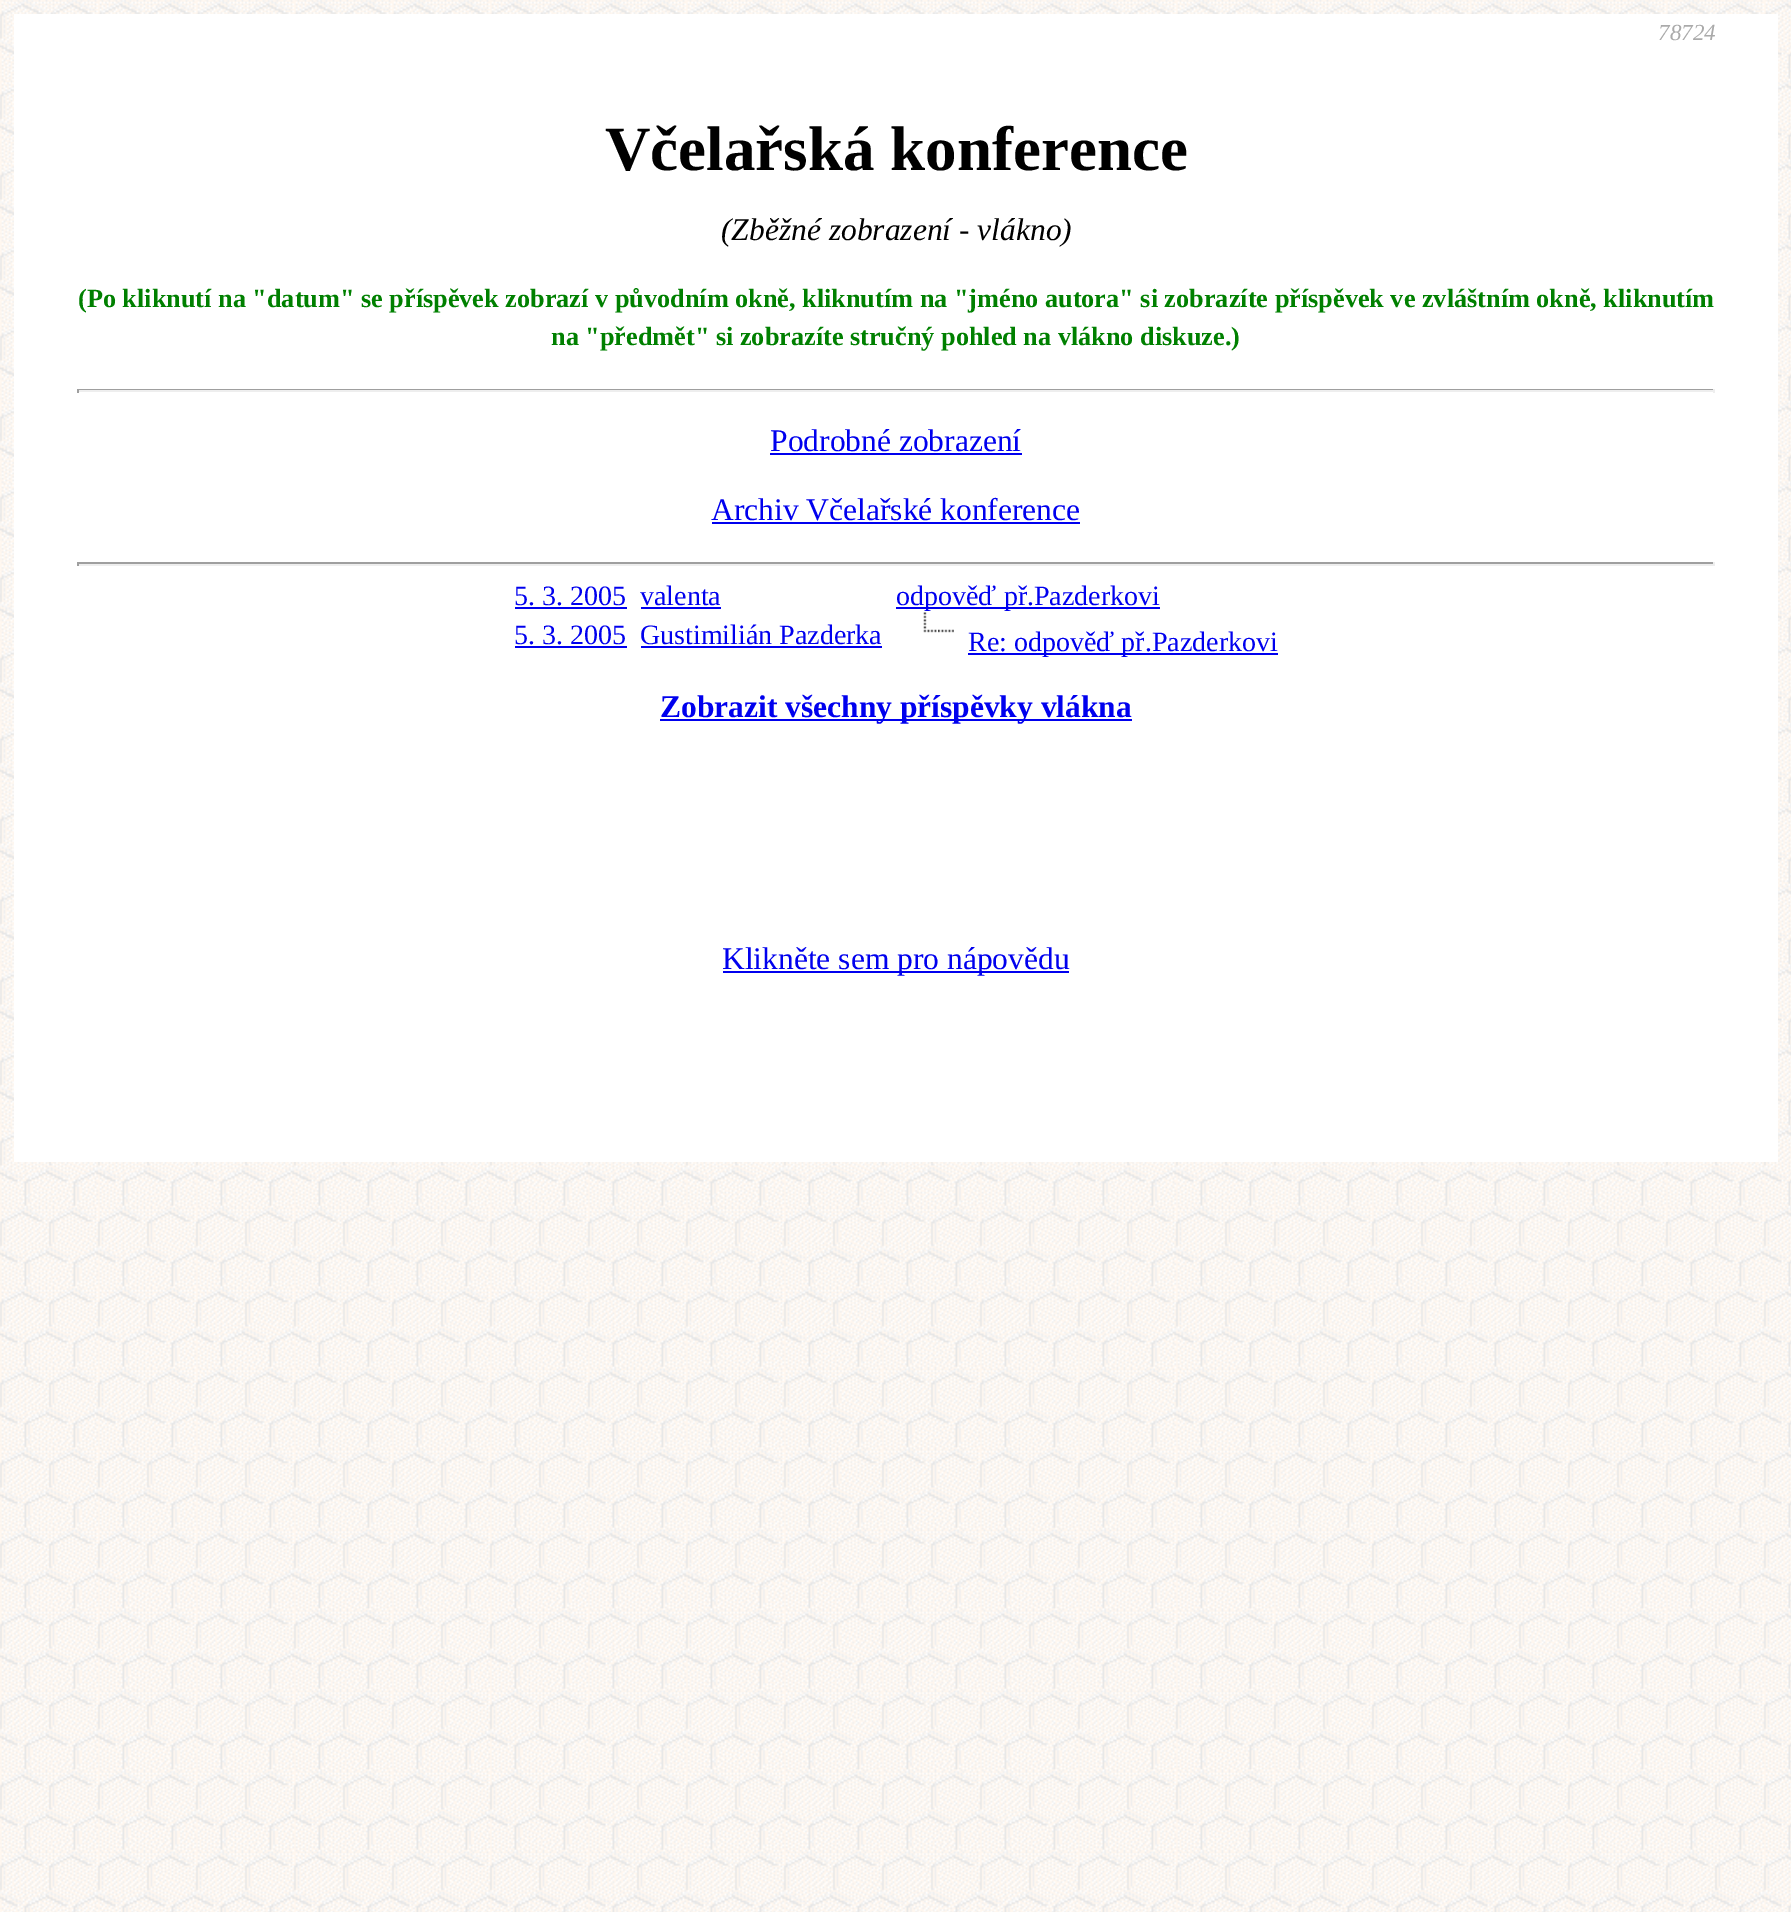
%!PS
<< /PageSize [1791 1912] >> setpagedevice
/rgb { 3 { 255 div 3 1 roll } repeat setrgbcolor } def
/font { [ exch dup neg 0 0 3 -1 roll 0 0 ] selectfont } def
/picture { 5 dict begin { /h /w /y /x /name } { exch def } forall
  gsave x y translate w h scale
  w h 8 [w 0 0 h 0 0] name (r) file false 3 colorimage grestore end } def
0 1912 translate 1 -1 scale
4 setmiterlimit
255 255 255 rgb
0 0 1791 1912 rectfill
(img/1.rgb) 0 0 1791 1912 picture
[
  [14 14 1764 1148 255 255 255]
  [77 389 1638 1 159 159 159]
  [1713 389 2 4 238 238 238]
  [77 390 1638 2 238 238 238]
  [77 389 2 4 159 159 159]
  [770 453 252 2 0 0 238]
  [712 522 368 2 0 0 238]
  [77 562 1638 2 159 159 159]
  [1713 562 2 4 238 238 238]
  [77 564 1638 2 238 238 238]
  [77 562 2 4 159 159 159]
  [515 607 112 2 0 0 238]
  [641 607 80 2 0 0 238]
  [896 607 264 2 0 0 238]
  [515 646 112 2 0 0 238]
  [641 646 241 2 0 0 238]
] { aload pop rgb rectfill } forall
(img/2.rgb) 923 612 14 21 picture
(img/3.rgb) 938 629 16 4 picture
[
  [968 653 310 2 0 0 238]
  [660 719 472 2 0 0 238]
  [723 971 346 2 0 0 238]
] { aload pop rgb rectfill } forall
/LiberationSerif-Italic 23 font
170 170 170 rgb
1658 40 moveto (78724) show
/LiberationSerif-Bold 63 font
0 0 0 rgb
605 170 moveto (Včelařská konference) show
/LiberationSerif-Italic 31.5 font
721 240 moveto (\(Zběžné zobrazení - vlákno\)) show
/LiberationSerif-Bold 26.25 font
0 128 0 rgb
78 307 moveto (\(Po kliknutí na "datum" se příspěvek zobrazí v původním okně, kliknutím na "jméno autora" si zobrazíte příspěvek ve zvláštním okně, kliknutím) show
551 345 moveto (na "předmět" si zobrazíte stručný pohled na vlákno diskuze.\)) show
/LiberationSerif-Regular 31.5 font
0 0 238 rgb
770 451 moveto (Podrobné zobrazení) show
711 520 moveto (Archiv Včelařské konference) show
/LiberationSerif-Regular 28 font
[
  [(5. 3. 2005) 514 605]
  [(valenta) 640 605]
  [(odpověď př.Pazderkovi) 896 605]
  [(5. 3. 2005) 514 644]
  [(Gustimilián Pazderka) 640 644]
  [(Re: odpověď př.Pazderkovi) 968 651]
] { aload pop moveto show } forall
/LiberationSerif-Bold 31.5 font
660 717 moveto (Zobrazit všechny příspěvky vlákna) show
/LiberationSerif-Regular 31.5 font
722 969 moveto (Klikněte sem pro nápovědu) show
showpage
